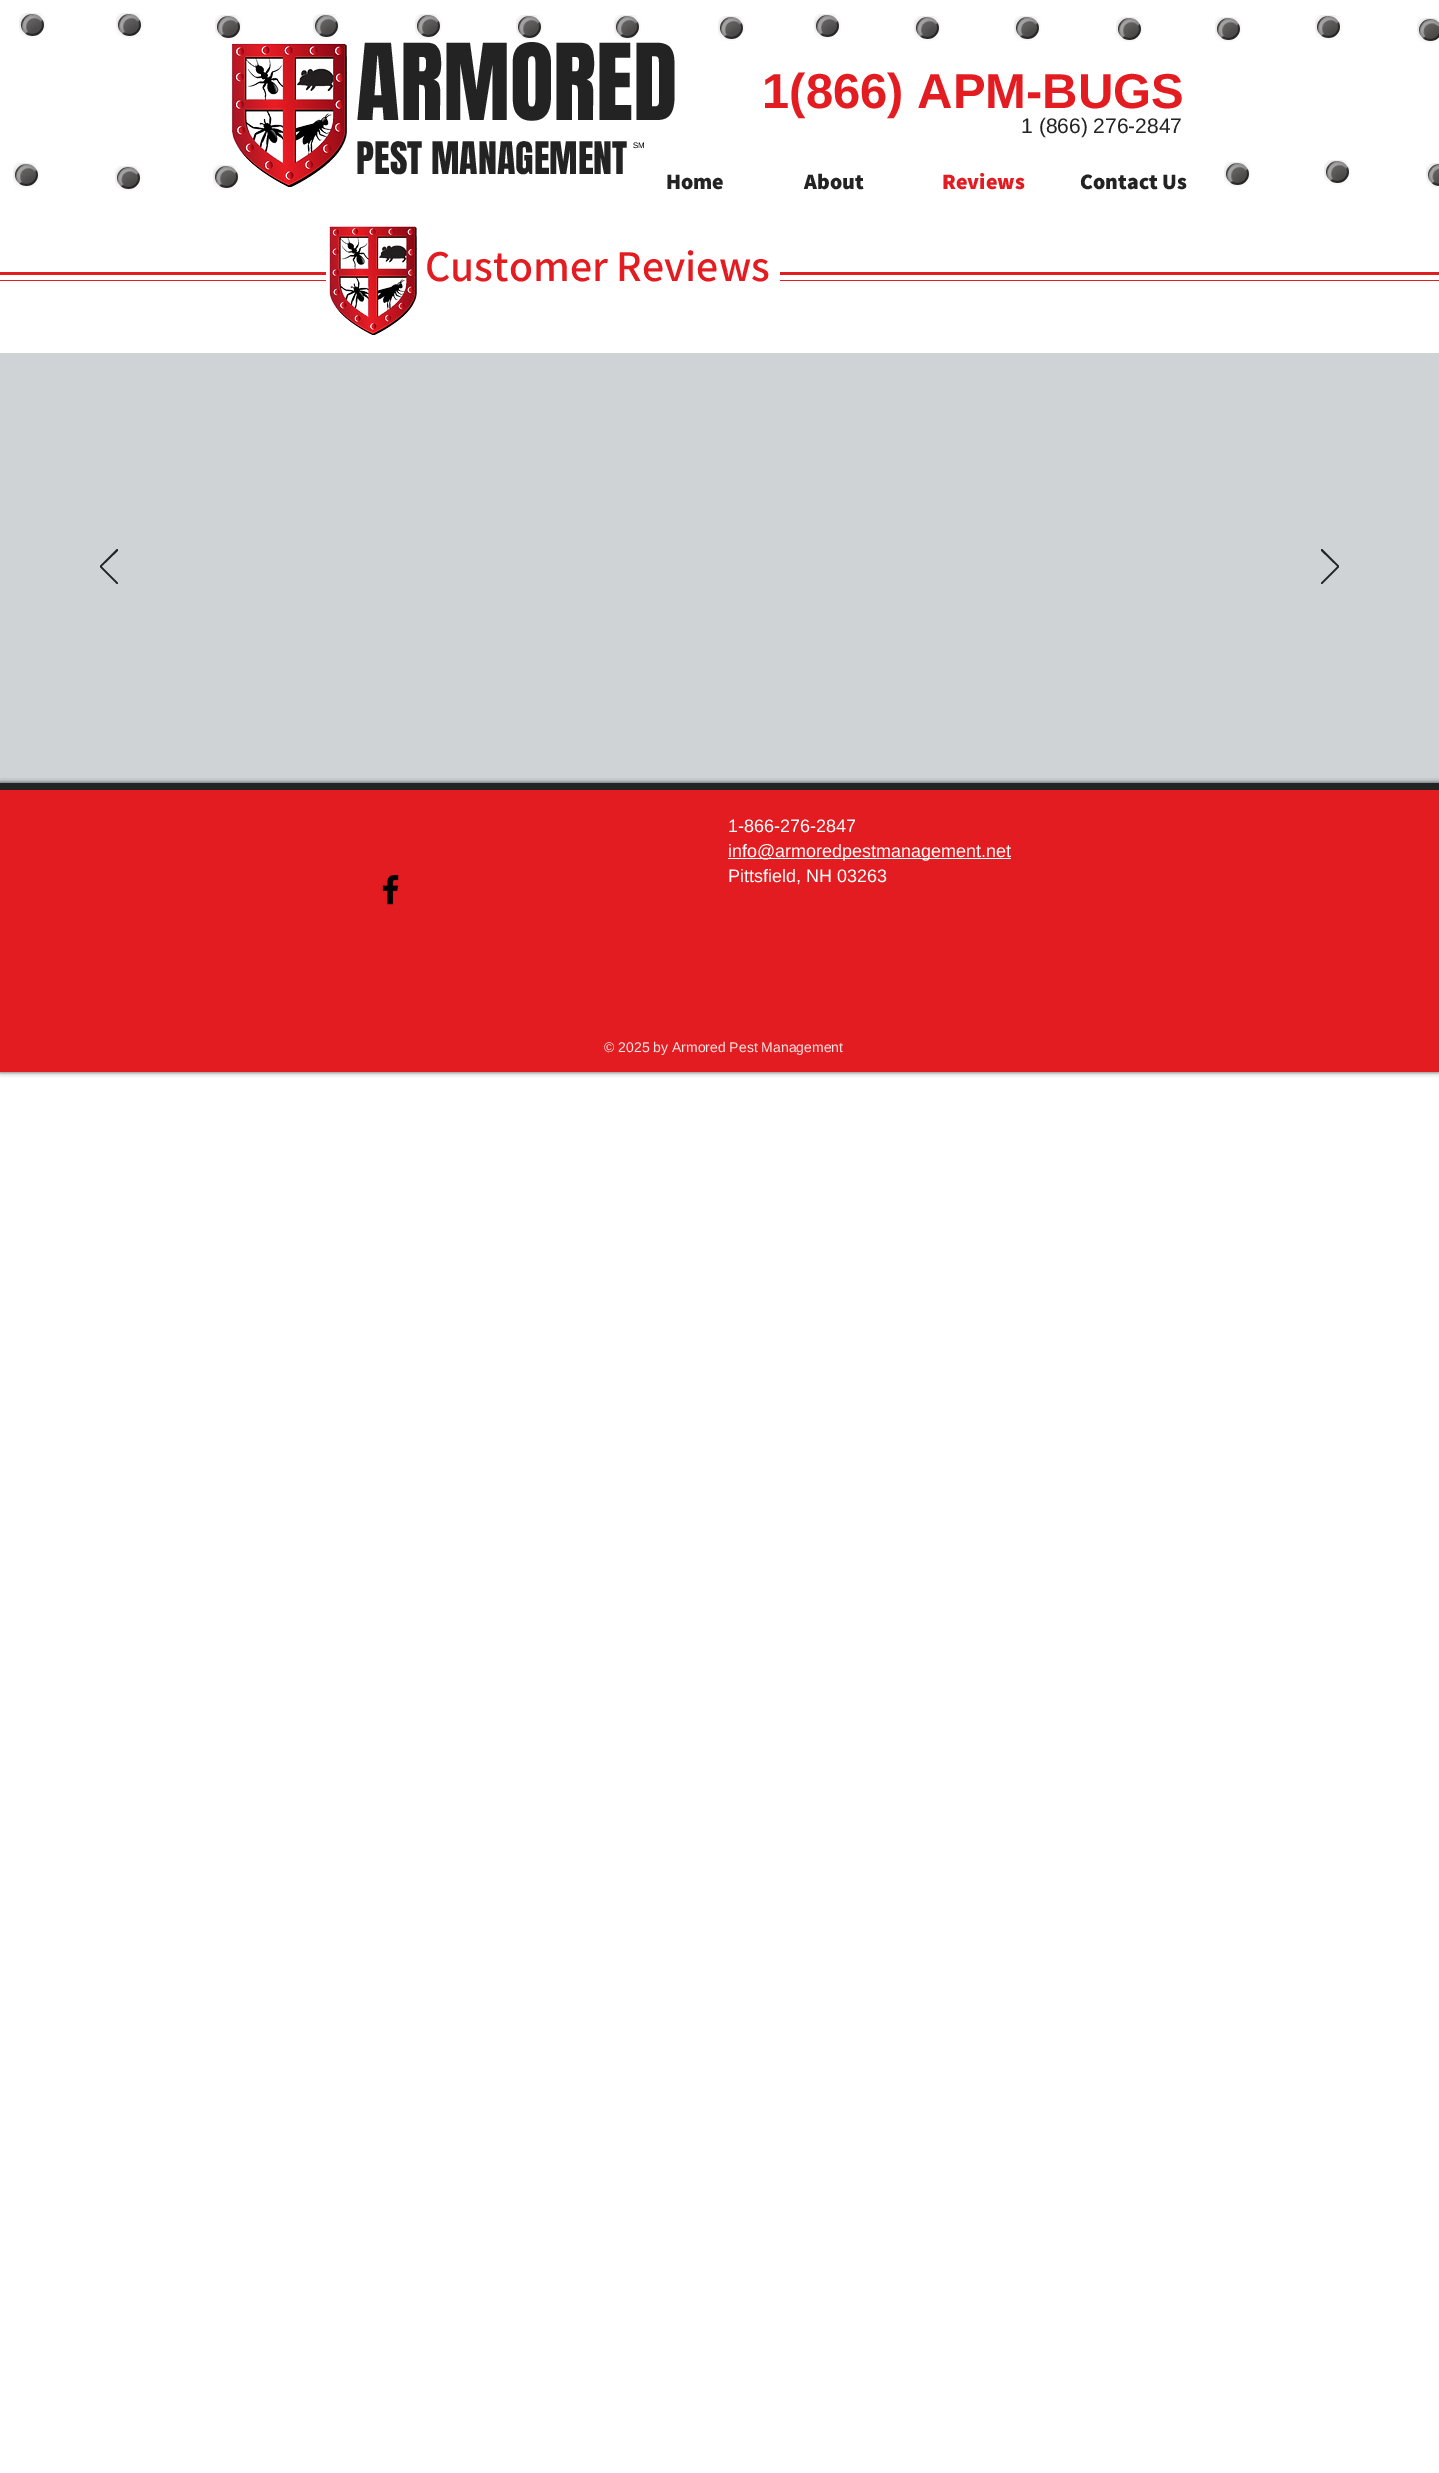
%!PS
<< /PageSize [1439 2473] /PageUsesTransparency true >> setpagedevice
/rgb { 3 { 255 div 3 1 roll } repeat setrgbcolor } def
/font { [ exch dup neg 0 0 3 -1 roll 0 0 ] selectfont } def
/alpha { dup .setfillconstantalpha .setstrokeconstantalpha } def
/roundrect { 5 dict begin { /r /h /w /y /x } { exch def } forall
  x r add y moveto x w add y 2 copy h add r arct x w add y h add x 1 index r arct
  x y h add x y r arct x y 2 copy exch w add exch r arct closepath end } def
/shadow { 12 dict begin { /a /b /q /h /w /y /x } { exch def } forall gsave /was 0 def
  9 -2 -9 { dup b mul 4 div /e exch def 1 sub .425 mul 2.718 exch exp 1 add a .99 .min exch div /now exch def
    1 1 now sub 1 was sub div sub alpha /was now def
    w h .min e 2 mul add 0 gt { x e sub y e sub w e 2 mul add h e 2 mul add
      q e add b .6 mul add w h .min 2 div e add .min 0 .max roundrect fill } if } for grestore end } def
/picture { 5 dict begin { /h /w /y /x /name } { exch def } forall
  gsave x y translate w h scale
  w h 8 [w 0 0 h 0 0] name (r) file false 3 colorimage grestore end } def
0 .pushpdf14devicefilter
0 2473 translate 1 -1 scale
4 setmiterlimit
255 255 255 rgb
0 0 1439 2473 rectfill
(img/1.rgb) 19 13 27 25 picture
(img/2.rgb) 21 13 23 23 picture
(img/1.rgb) 116 13 27 25 picture
(img/2.rgb) 118 13 23 23 picture
(img/1.rgb) 215 15 27 25 picture
(img/2.rgb) 217 15 23 23 picture
(img/1.rgb) 313 14 27 25 picture
(img/2.rgb) 315 14 23 23 picture
(img/1.rgb) 415 14 27 25 picture
(img/2.rgb) 417 14 23 23 picture
(img/1.rgb) 516 15 27 25 picture
(img/2.rgb) 518 15 23 23 picture
(img/1.rgb) 614 15 27 25 picture
(img/2.rgb) 616 15 23 23 picture
(img/1.rgb) 718 16 27 25 picture
(img/2.rgb) 720 16 23 23 picture
(img/1.rgb) 814 14 27 25 picture
(img/2.rgb) 816 14 23 23 picture
(img/1.rgb) 914 16 27 25 picture
(img/2.rgb) 916 16 23 23 picture
(img/3.rgb) 1014 16 27 25 picture
(img/4.rgb) 1016 16 23 23 picture
(img/1.rgb) 1116 17 27 25 picture
(img/2.rgb) 1118 17 23 23 picture
(img/1.rgb) 1315 15 27 25 picture
(img/1.rgb) 1215 17 27 25 picture
(img/2.rgb) 1317 15 23 23 picture
(img/2.rgb) 1217 17 23 23 picture
(img/5.rgb) 1417 18 22 25 picture
(img/6.rgb) 1419 19 20 22 picture
(img/7.rgb) 231 43 116 144 picture
(img/1.rgb) 13 163 27 25 picture
(img/8.rgb) 15 163 23 23 picture
(img/1.rgb) 213 165 27 25 picture
(img/1.rgb) 115 166 27 25 picture
(img/8.rgb) 215 165 23 23 picture
(img/9.rgb) 117 167 23 22 picture
(img/1.rgb) 1324 160 27 25 picture
(img/1.rgb) 1224 162 27 25 picture
(img/8.rgb) 1326 160 23 23 picture
(img/8.rgb) 1226 162 23 23 picture
(img/10.rgb) 1426 163 13 25 picture
(img/11.rgb) 1428 164 11 22 picture
226 28 33 rgb
0 272 326 3 rectfill
0 280 326 1 rectfill
(img/12.rgb) 329 226 88 109 picture
[
  [780 272 659 3 226 28 33]
  [780 280 659 1 226 28 33]
  [0 353 1439 430 207 211 214]
] { aload pop rgb rectfill } forall
gsave
100 549 18 35 rectclip
35 35 35 rgb
0.9 setlinewidth
117.5 584 moveto 100 566.5 lineto 117.5 549 lineto 118 550 lineto 101 566.5 lineto 118 583.5 lineto closepath stroke
grestore
gsave
1321 549 18 35 rectclip
35 35 35 rgb
0.9 setlinewidth
1321.5 584 moveto 1339 566.5 lineto 1321.5 549 lineto 1321 550 lineto 1338 566.5 lineto 1321 583.5 lineto closepath stroke
grestore
0 0 0 rgb
0 783 1439 289 0 2.5 0.7 shadow
[
  [0 790 1439 282 226 28 33]
  [0 783 1439 7 35 35 35]
  [728 858 283 1 255 255 255]
] { aload pop rgb rectfill } forall
(img/13.rgb) 382 875 17 30 picture
/Anton-Regular 90 font
35 35 35 rgb
356 120 moveto (ARMORED) show
/Anton-Regular 38 font
356 174 moveto (PEST MANAGEMENT) show
/LiberationSans-Bold 49 font
226 28 33 rgb
762 108 moveto (1\(866\) APM-BUGS) show
/LiberationSans-Regular 21 font
35 35 35 rgb
1021 133 moveto (1 \(866\) 276-2847) show
/LiberationSans-Regular 8 font
0 0 0 rgb
633 148 moveto (SM) show
/Assistant-ExtraBold 22 font
35 35 35 rgb
666 189 moveto (Home) show
804 189 moveto (About) show
226 28 33 rgb
942 189 moveto (Reviews) show
35 35 35 rgb
1080 189 moveto (Contact Us) show
/Assistant-SemiBold 44 font
226 28 33 rgb
425 281 moveto (Customer Reviews) show
/LiberationSans-Regular 18 font
255 255 255 rgb
[
  [(1-866-276-2847) 728 832]
  [(info@armoredpestmanagement.net) 728 857]
  [(Pittsfield, NH 03263) 728 882]
] { aload pop moveto show } forall
/LiberationSans-Regular 14 font
249 230 228 rgb
604 1052 moveto (© 2025 by Armored Pest Management) show
.poppdf14devicefilter showpage
